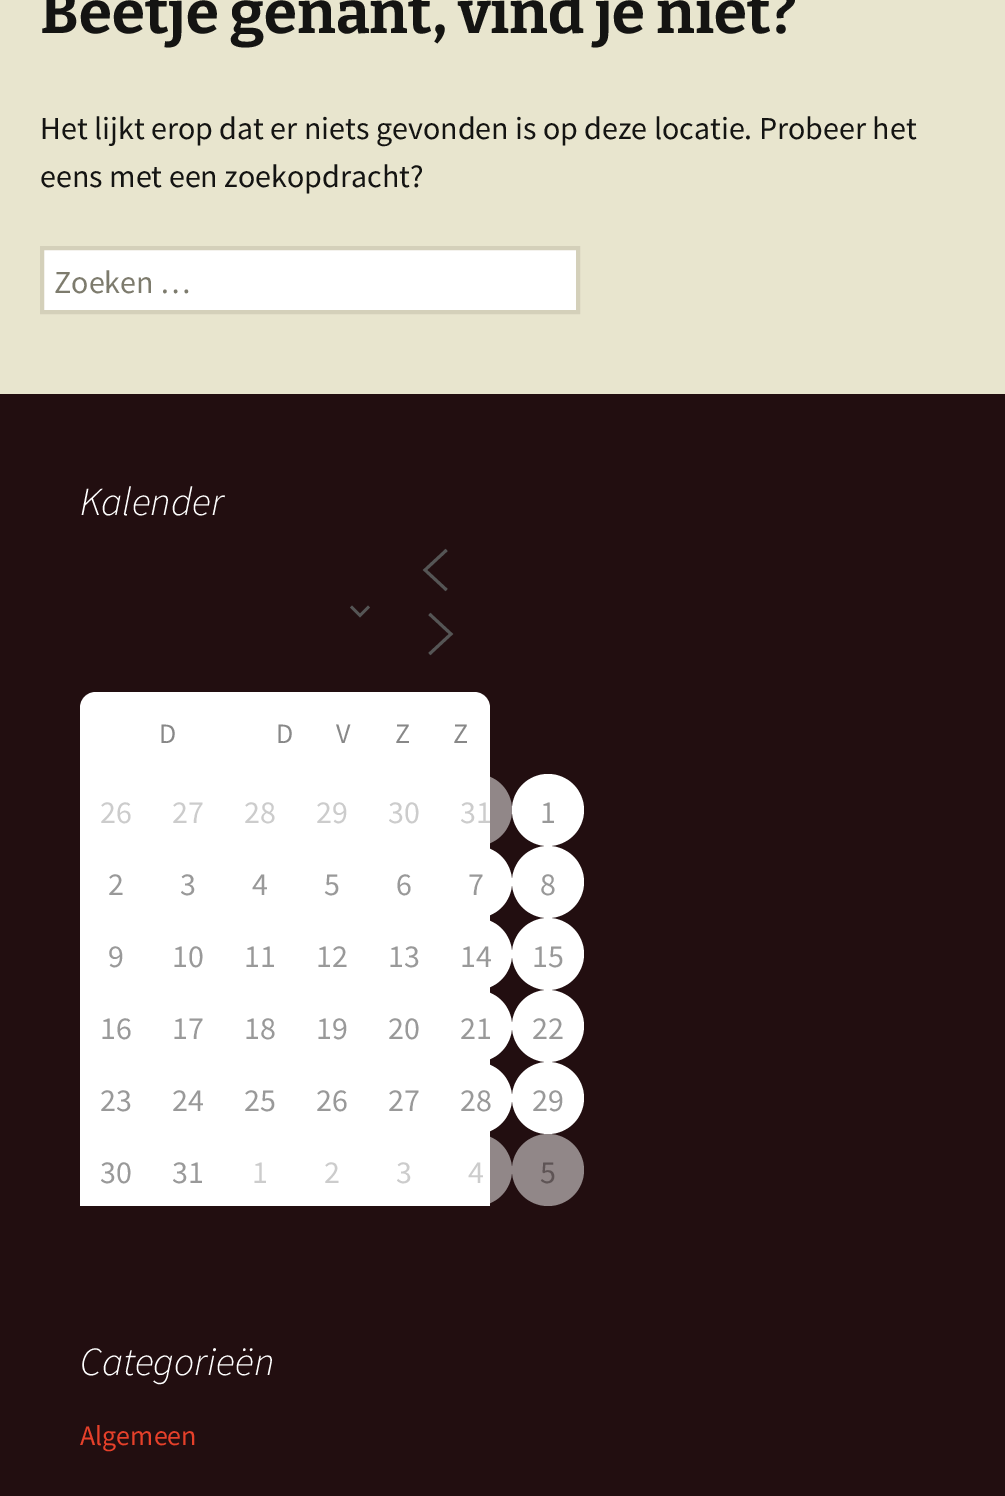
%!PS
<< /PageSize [1005 1496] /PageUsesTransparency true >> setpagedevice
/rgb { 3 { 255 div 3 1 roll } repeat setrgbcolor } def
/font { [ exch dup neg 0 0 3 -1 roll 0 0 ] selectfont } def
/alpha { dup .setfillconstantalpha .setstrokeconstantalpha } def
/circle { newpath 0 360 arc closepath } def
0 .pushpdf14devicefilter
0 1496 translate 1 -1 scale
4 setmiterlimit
34 14 16 rgb
0 0 1005 1496 rectfill
232 229 206 rgb
0 0 1005 394 rectfill
255 255 255 rgb
42 248 moveto 578 248 lineto 578 312 lineto 42 312 lineto closepath gsave fill grestore
212 208 186 rgb
4 setlinewidth
stroke
85 85 85 rgb
2.7 setlinewidth
2 setlinecap
352 607.5 moveto 360 615.5 lineto 368 607.5 lineto stroke
2.9 setlinewidth
445.5 589 moveto 425 570 lineto 445.5 551 lineto stroke
430.5 653 moveto 451 634 lineto 430.5 615 lineto stroke
255 255 255 rgb
96 692 moveto 474 692 lineto 483 692 490 699 490 708 curveto 490 774 lineto 80 774 lineto 80 708 lineto 80 699 87 692 96 692 curveto closepath fill
80 774 410 432 rectfill
0.5 alpha
476 810 36 circle fill
1 alpha
548 810 36 circle fill
476 882 36 circle fill
548 882 36 circle fill
476 954 36 circle fill
548 954 36 circle fill
476 1026 36 circle fill
548 1026 36 circle fill
476 1098 36 circle fill
548 1098 36 circle fill
0.5 alpha
476 1170 36 circle fill
1 alpha
145 135 136 rgb
548 1170 36 circle fill
/Bitter-Thin 60 font
20 20 18 rgb
40 33 moveto (Beetje gênant, vind je niet?) show
/SourceSansPro-Regular 32 font
40 139 moveto (Het lijkt erop dat er niets gevonden is op deze locatie. Probeer het) show
40 187 moveto (eens met een zoekopdracht?) show
125 123 109 rgb
54 293 moveto (Zoeken …) show
/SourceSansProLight-LightItalic 40 font
255 255 255 rgb
80 515 moveto (Kalender) show
/SourceSansPro-Regular 28 font
136 136 136 rgb
[
  [(D) 159 743]
  [(D) 276 743]
  [(V) 336 743]
  [(Z) 395 743]
  [(Z) 453 743]
] { aload pop moveto show } forall
/SourceSansPro-Regular 32 font
204 204 204 rgb
[
  [(26) 100 823]
  [(27) 172 823]
  [(28) 244 823]
  [(29) 316 823]
  [(30) 388 823]
  [(31) 460 823]
] { aload pop moveto show } forall
153 153 153 rgb
[
  [(1) 540 823]
  [(2) 108 895]
  [(3) 180 895]
  [(4) 252 895]
  [(5) 324 895]
  [(6) 396 895]
  [(7) 468 895]
  [(8) 540 895]
  [(9) 108 967]
  [(10) 172 967]
  [(11) 244 967]
  [(12) 316 967]
  [(13) 388 967]
  [(14) 460 967]
  [(15) 532 967]
  [(16) 100 1039]
  [(17) 172 1039]
  [(18) 244 1039]
  [(19) 316 1039]
  [(20) 388 1039]
  [(21) 460 1039]
  [(22) 532 1039]
  [(23) 100 1111]
  [(24) 172 1111]
  [(25) 244 1111]
  [(26) 316 1111]
  [(27) 388 1111]
  [(28) 460 1111]
  [(29) 532 1111]
  [(30) 100 1183]
  [(31) 172 1183]
] { aload pop moveto show } forall
204 204 204 rgb
[
  [(1) 252 1183]
  [(2) 324 1183]
  [(3) 396 1183]
  [(4) 468 1183]
] { aload pop moveto show } forall
94 84 85 rgb
540 1183 moveto (5) show
/SourceSansProLight-LightItalic 40 font
255 255 255 rgb
80 1375 moveto (Categorieën) show
/SourceSansPro-Regular 28 font
230 64 42 rgb
80 1445 moveto (Algemeen) show
.poppdf14devicefilter showpage
